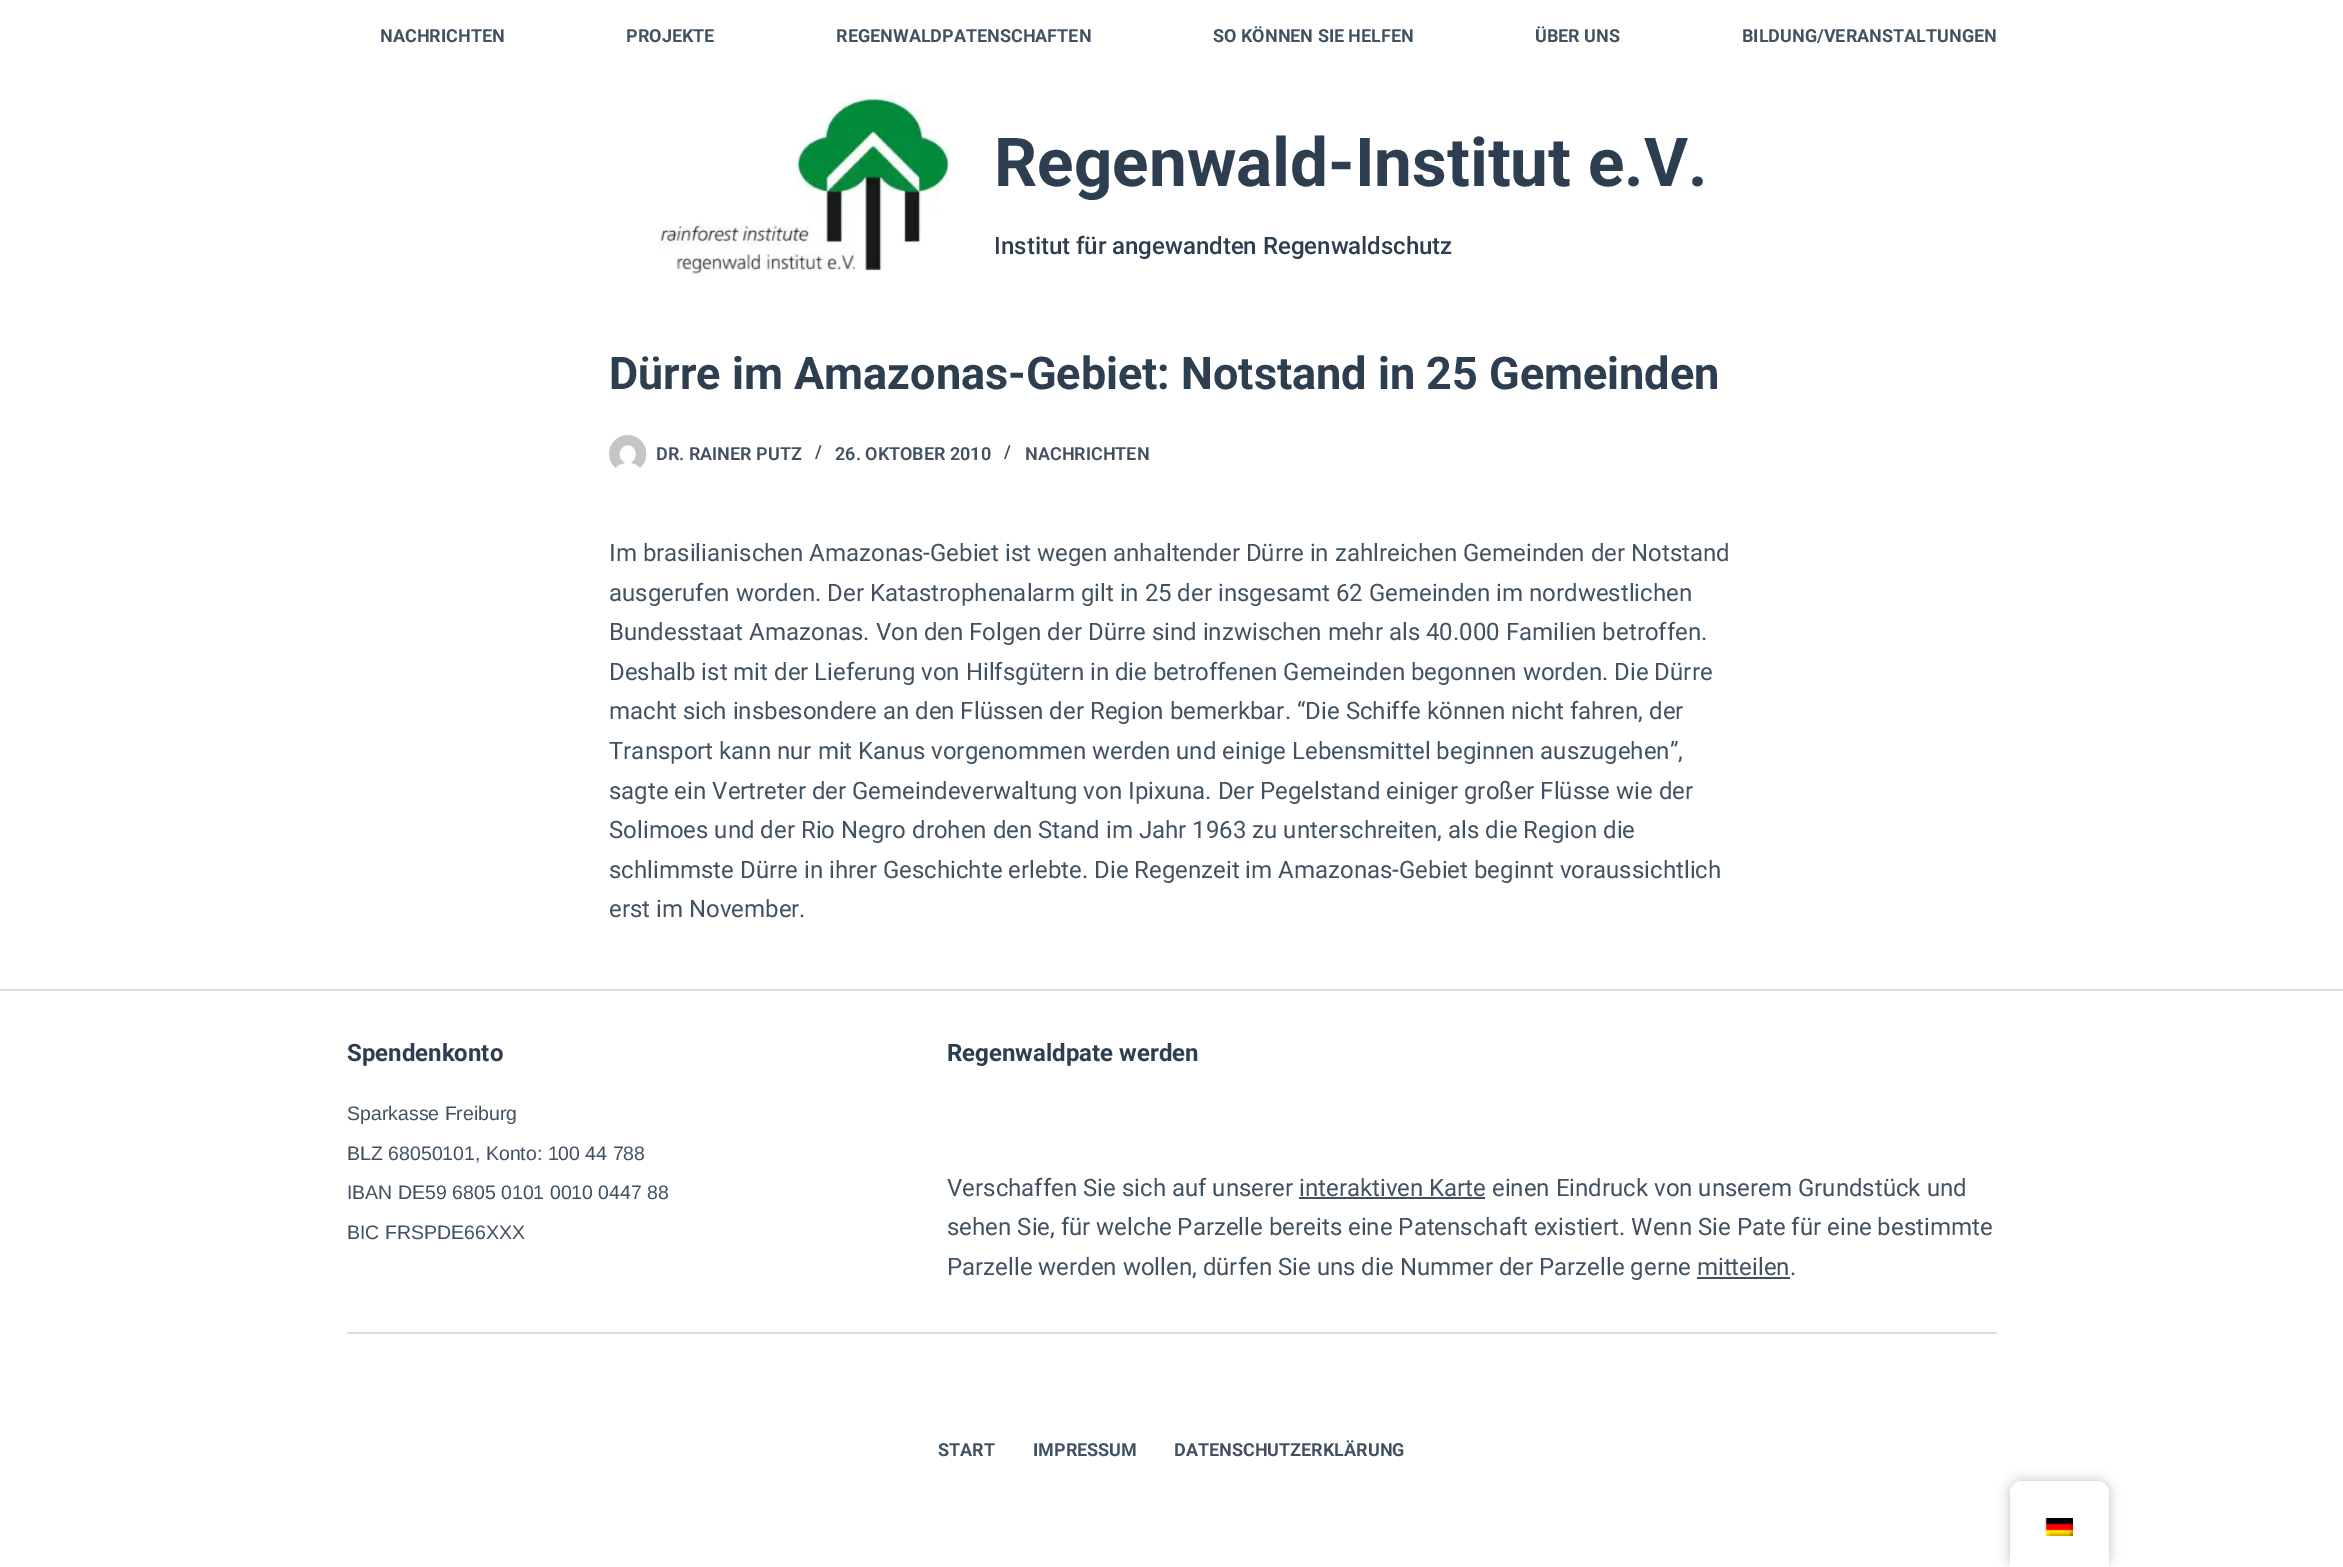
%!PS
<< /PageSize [2343 1567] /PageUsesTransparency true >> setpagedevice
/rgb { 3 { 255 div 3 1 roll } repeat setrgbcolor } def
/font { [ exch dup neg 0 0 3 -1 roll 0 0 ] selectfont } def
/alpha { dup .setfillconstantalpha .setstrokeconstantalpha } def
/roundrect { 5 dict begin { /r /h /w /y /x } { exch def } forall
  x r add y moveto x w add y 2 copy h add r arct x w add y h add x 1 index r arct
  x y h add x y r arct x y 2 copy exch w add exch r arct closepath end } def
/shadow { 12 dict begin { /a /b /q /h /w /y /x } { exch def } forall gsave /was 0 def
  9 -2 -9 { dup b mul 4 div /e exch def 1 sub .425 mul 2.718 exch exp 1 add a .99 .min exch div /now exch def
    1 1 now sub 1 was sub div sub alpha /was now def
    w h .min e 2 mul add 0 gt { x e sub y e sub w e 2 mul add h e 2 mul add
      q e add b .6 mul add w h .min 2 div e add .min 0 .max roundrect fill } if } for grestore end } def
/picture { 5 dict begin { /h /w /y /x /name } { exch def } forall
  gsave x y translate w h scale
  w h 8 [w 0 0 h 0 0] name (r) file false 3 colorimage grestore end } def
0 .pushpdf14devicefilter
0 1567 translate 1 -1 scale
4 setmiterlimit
255 255 255 rgb
0 0 2343 1567 rectfill
(img/1.rgb) 658 92 292 184 picture
(img/2.rgb) 609 435 38 35 picture
[
  [0 989 2343 2 221 221 221]
  [1299 1197 186 2 65 81 98]
  [1697 1277 93 2 65 81 98]
  [347 1332 1650 2 221 221 221]
] { aload pop rgb rectfill } forall
0 0 0 rgb
2010 1481 99 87 12 6 0.25 shadow
255 255 255 rgb
2022 1481 moveto 2097 1481 lineto 2103.5 1481 2109 1486.5 2109 1493 curveto 2109 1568 lineto 2010 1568 lineto 2010 1493 lineto 2010 1486.5 2015.5 1481 2022 1481 curveto closepath fill
(img/3.rgb) 2045 1518 28 18 picture
/Roboto-Bold 18 font
65 81 98 rgb
[
  [(NACHRICHTEN) 380 42]
  [(PROJEKTE) 626 42]
  [(REGENWALDPATENSCHAFTEN) 836 42]
  [(SO KÖNNEN SIE HELFEN) 1213 42]
  [(ÜBER UNS) 1535 42]
  [(BILDUNG/VERANSTALTUNGEN) 1742 42]
] { aload pop moveto show } forall
/Roboto-Bold 67.5 font
44 62 80 rgb
994 186 moveto (Regenwald-Institut e.V.) show
/Roboto-Medium 24 font
994 254 moveto (Institut für angewandten Regenwaldschutz) show
/Roboto-Bold 45 font
609 389 moveto (Dürre im Amazonas-Gebiet: Notstand in 25 Gemeinden) show
/Roboto-SemiBold 18 font
65 81 98 rgb
[
  [(DR. RAINER PUTZ) 656 460]
  [(/) 815 458]
  [(26. OKTOBER 2010) 835 460]
  [(/) 1004 458]
  [(NACHRICHTEN) 1025 460]
] { aload pop moveto show } forall
/Roboto-Regular 24 font
[
  [(Im brasilianischen Amazonas-Gebiet ist wegen anhaltender Dürre in zahlreichen Gemeinden der Notstand) 609 561]
  [(ausgerufen worden. Der Katastrophenalarm gilt in 25 der insgesamt 62 Gemeinden im nordwestlichen) 609 601]
  [(Bundesstaat Amazonas. Von den Folgen der Dürre sind inzwischen mehr als 40.000 Familien betroffen.) 609 640]
  [(Deshalb ist mit der Lieferung von Hilfsgütern in die betroffenen Gemeinden begonnen worden. Die Dürre) 609 680]
  [(macht sich insbesondere an den Flüssen der Region bemerkbar. “Die Schiffe können nicht fahren, der) 609 719]
  [(Transport kann nur mit Kanus vorgenommen werden und einige Lebensmittel beginnen auszugehen”,) 609 759]
  [(sagte ein Vertreter der Gemeindeverwaltung von Ipixuna. Der Pegelstand einiger großer Flüsse wie der) 609 799]
  [(Solimoes und der Rio Negro drohen den Stand im Jahr 1963 zu unterschreiten, als die Region die) 609 838]
  [(schlimmste Dürre in ihrer Geschichte erlebte. Die Regenzeit im Amazonas-Gebiet beginnt voraussichtlich) 609 878]
  [(erst im November.) 609 917]
] { aload pop moveto show } forall
/Roboto-Bold 24 font
44 62 80 rgb
347 1061 moveto (Spendenkonto) show
/LiberationSans-Regular 19.5 font
65 81 98 rgb
[
  [(Sparkasse Freiburg) 347 1120]
  [(BLZ 68050101, Konto: 100 44 788) 347 1160]
  [(IBAN DE59 6805 0101 0010 0447 88) 347 1199]
  [(BIC FRSPDE66XXX) 347 1239]
] { aload pop moveto show } forall
/Roboto-Bold 24 font
44 62 80 rgb
947 1061 moveto (Regenwaldpate werden) show
/Roboto-Regular 24 font
65 81 98 rgb
[
  [(Verschaffen Sie sich auf unserer interaktiven Karte einen Eindruck von unserem Grundstück und) 947 1196]
  [(sehen Sie, für welche Parzelle bereits eine Patenschaft existiert. Wenn Sie Pate für eine bestimmte) 947 1235]
  [(Parzelle werden wollen, dürfen Sie uns die Nummer der Parzelle gerne mitteilen.) 947 1275]
] { aload pop moveto show } forall
/Roboto-Bold 18 font
[
  [(START) 938 1456]
  [(IMPRESSUM) 1033 1456]
  [(DATENSCHUTZERKLÄRUNG) 1174 1456]
] { aload pop moveto show } forall
.poppdf14devicefilter showpage
